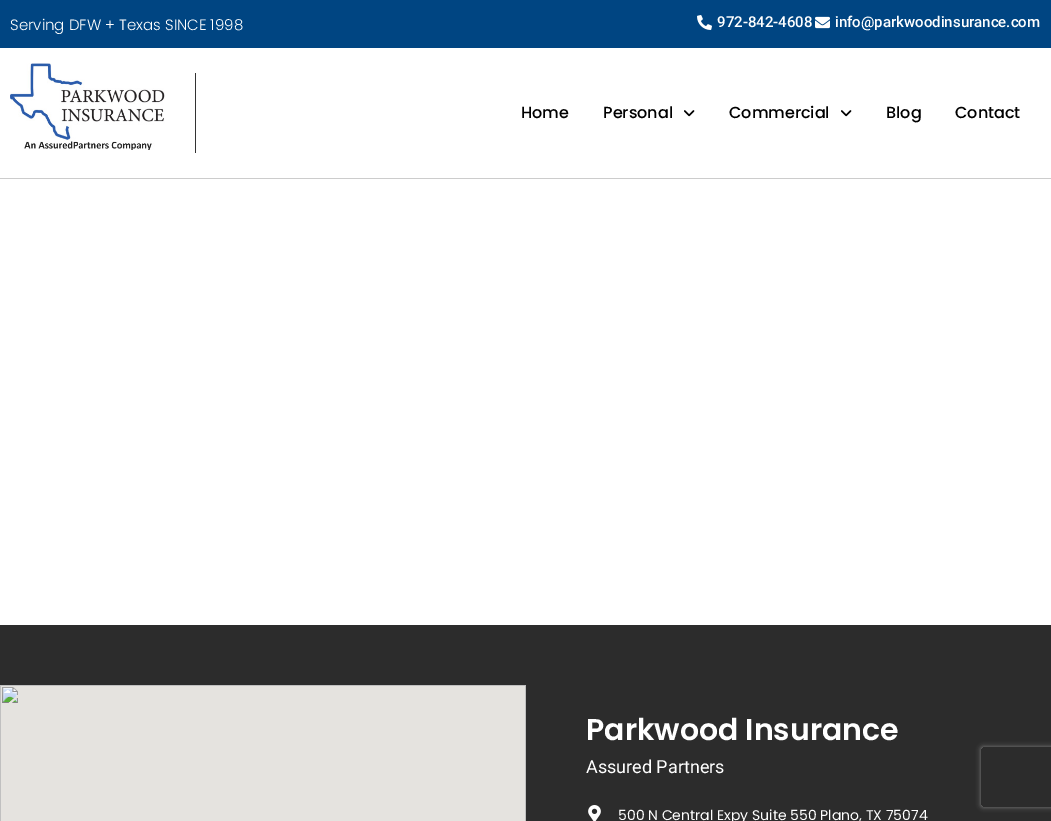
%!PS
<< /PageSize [1051 821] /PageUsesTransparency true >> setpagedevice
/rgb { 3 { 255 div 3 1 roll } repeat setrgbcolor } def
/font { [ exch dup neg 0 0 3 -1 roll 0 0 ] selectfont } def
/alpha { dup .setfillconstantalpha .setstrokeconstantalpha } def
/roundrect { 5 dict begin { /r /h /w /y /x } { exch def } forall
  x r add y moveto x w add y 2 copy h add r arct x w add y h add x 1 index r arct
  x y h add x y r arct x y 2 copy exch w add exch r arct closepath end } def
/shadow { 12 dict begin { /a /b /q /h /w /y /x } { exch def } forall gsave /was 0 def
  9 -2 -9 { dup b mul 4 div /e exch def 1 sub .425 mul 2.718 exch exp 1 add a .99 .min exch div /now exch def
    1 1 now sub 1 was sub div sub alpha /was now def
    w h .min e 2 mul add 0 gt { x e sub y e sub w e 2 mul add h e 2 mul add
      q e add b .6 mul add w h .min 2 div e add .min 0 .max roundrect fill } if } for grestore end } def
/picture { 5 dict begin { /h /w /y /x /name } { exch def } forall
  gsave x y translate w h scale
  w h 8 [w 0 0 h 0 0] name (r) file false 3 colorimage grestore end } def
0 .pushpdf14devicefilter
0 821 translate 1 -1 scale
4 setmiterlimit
255 255 255 rgb
0 0 1051 821 rectfill
0 69 130 rgb
0 0 1051 48 rectfill
(img/1.rgb) 697 15 15 15 picture
(img/2.rgb) 815 16 15 13 picture
204 204 204 rgb
0 178 1051 1 rectfill
(img/3.rgb) 10 63 155 87 picture
51 51 51 rgb
195 73 1 80 rectfill
(img/4.rgb) 684 110 11 7 picture
(img/4.rgb) 841 110 11 7 picture
44 44 44 rgb
0 625 1051 196 rectfill
(img/5.rgb) 0 685 526 136 picture
(img/6.rgb) 588 805 13 16 picture
gsave
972 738 moveto 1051 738 lineto 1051 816 lineto 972 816 lineto closepath 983 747 moveto 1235 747 lineto 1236 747 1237 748 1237 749 curveto 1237 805 lineto 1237 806 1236 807 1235 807 curveto 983 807 lineto 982 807 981 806 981 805 curveto 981 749 lineto 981 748 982 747 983 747 curveto closepath eoclip newpath
128 128 128 rgb
981 747 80 60 2 2.5 1 shadow
grestore
/Poppins-Light 15 font
255 255 255 rgb
10 30 moveto (Serving DFW + Texas SINCE 1998) show
/Roboto-Medium 15 font
717 27 moveto (972-842-4608) show
835 27 moveto (info@parkwoodinsurance.com) show
/Poppins-Medium 16 font
0 0 0 rgb
[
  [(Home) 521 118]
  [(Personal) 603 118]
  [(Commercial) 729 118]
  [(Blog) 886 118]
  [(Contact) 955 118]
] { aload pop moveto show } forall
/Poppins-SemiBold 30 font
255 255 255 rgb
586 740 moveto (Parkwood Insurance) show
/Roboto-Regular 18 font
586 773 moveto (Assured Partners) show
/Poppins-Regular 14 font
618 820 moveto (500 N Central Expy Suite 550 Plano, TX 75074) show
.poppdf14devicefilter showpage
